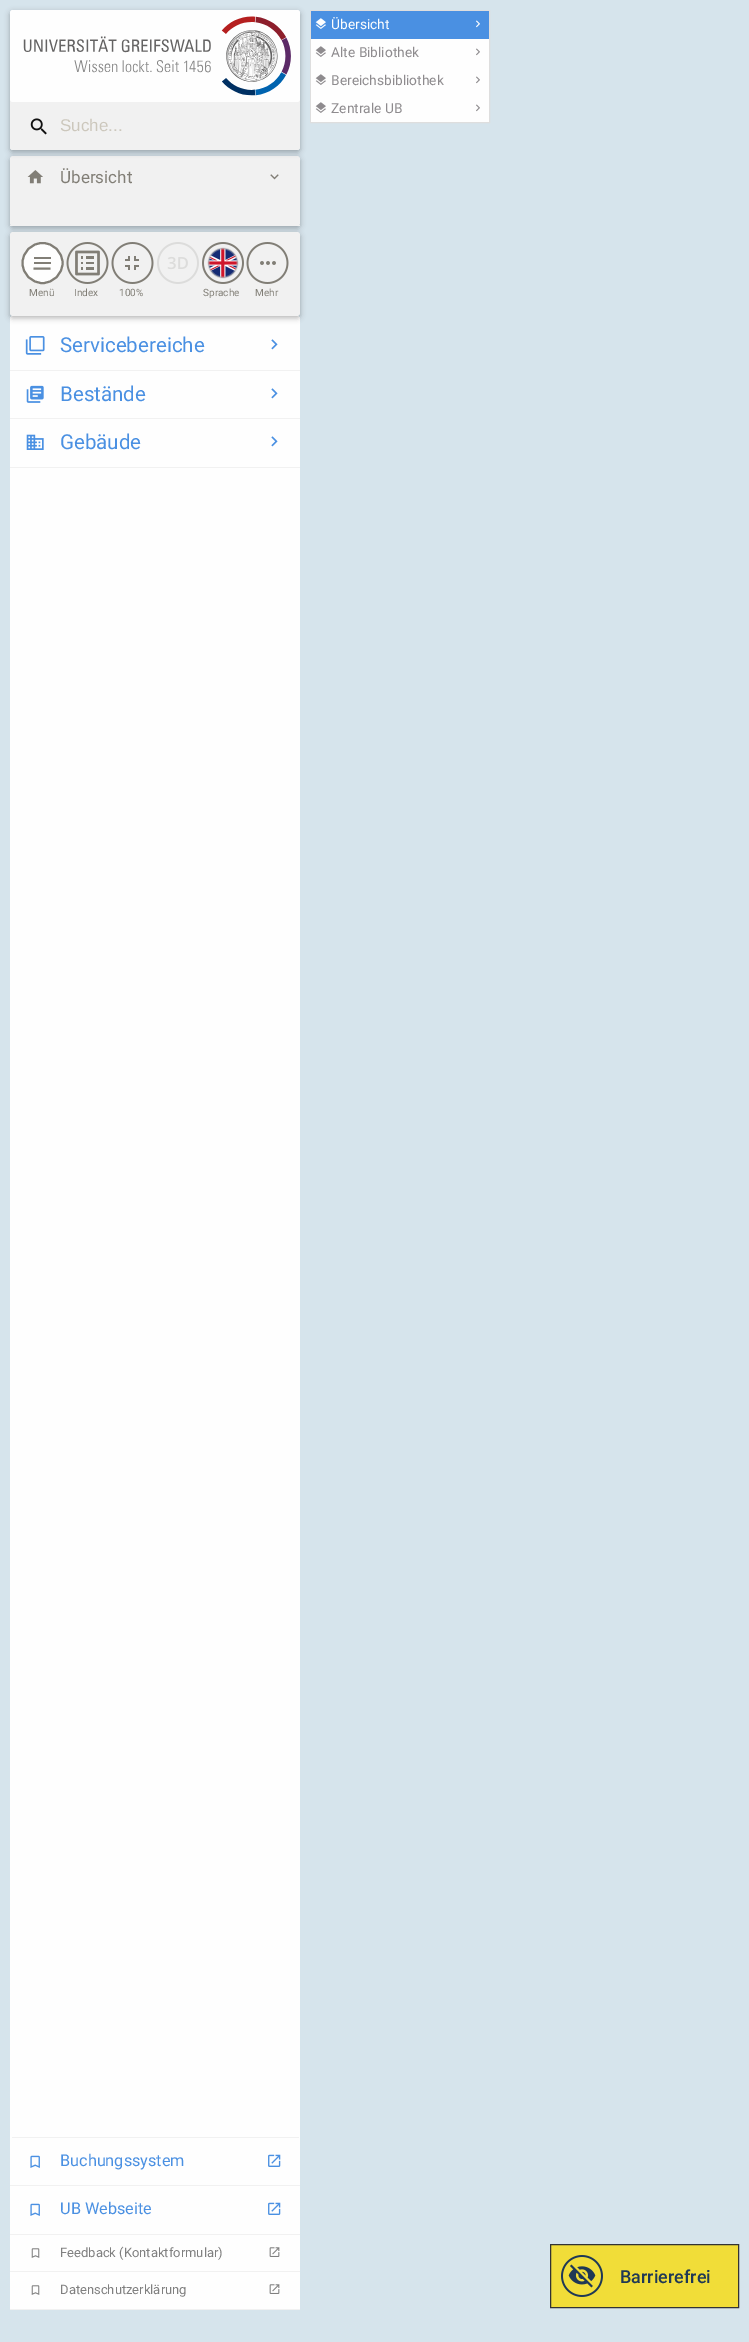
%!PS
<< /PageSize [749 2342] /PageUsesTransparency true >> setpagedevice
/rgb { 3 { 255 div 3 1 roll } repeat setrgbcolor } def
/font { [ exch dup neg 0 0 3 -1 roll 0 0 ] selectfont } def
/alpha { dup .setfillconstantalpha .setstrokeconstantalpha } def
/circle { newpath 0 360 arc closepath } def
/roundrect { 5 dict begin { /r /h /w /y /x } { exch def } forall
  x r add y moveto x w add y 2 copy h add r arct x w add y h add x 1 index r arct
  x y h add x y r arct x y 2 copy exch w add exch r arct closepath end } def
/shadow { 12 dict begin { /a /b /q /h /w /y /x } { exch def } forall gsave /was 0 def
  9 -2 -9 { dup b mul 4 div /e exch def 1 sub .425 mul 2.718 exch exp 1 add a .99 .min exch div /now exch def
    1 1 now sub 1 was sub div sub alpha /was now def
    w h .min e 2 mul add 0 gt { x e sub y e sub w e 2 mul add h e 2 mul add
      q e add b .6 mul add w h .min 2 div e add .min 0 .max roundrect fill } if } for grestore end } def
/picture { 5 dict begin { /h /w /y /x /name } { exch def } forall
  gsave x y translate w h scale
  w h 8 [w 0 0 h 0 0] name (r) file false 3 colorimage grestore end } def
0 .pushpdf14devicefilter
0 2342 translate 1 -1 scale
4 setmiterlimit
214 228 236 rgb
0 0 749 2342 rectfill
0 0 0 rgb
10 158 290 70 3 3 0.3 shadow
241 241 241 rgb
10 156 290 70 3 roundrect fill
0 0 0 rgb
10 12 290 140 3 3 0.3 shadow
241 241 241 rgb
10 10 290 140 3 roundrect fill
254 254 254 rgb
10 10 290 92 3 roundrect fill
(img/1.rgb) 23 16 268 80 picture
222 222 222 rgb
310.5 10.5 179 112 rectstroke
74 144 226 rgb
311 11 178 28 rectfill
(img/2.rgb) 315 18 11 11 picture
(img/3.rgb) 476 20 4 8 picture
254 254 254 rgb
311 39 178 83 rectfill
(img/4.rgb) 315 46 11 11 picture
(img/5.rgb) 476 48 4 8 picture
(img/4.rgb) 315 74 11 11 picture
(img/5.rgb) 476 76 4 8 picture
(img/4.rgb) 315 102 11 11 picture
(img/5.rgb) 476 104 4 8 picture
241 241 241 rgb
10 102 290 48 3 roundrect fill
(img/6.rgb) 30 118 17 17 picture
gsave
10 156 290 70 3 roundrect clip newpath
10 225 290 1 rectfill
grestore
(img/7.rgb) 27 170 16 14 picture
(img/8.rgb) 270 174 9 6 picture
254 254 254 rgb
10 316 290 1994 3 roundrect fill
10 316 290 1821 3 roundrect fill
0 0 0 rgb
10 234 290 84 3 3 0.3 shadow
241 241 241 rgb
10 232 290 84 3 roundrect fill
254 254 254 rgb
42.5 263 20 circle gsave fill grestore
129 126 118 rgb
2 setlinewidth
stroke
34 257 17 2 rectfill
34 262 17 2 rectfill
2 setlinecap
34.5 268.5 moveto 49.5 268.5 lineto stroke
(img/9.rgb) 157 242 42 42 picture
(img/10.rgb) 66 242 43 42 picture
(img/11.rgb) 111 242 43 42 picture
(img/12.rgb) 202 242 42 42 picture
(img/13.rgb) 246 242 43 42 picture
241 241 241 rgb
10 370 290 1 rectfill
(img/14.rgb) 25 336 20 19 picture
(img/15.rgb) 271 339 7 11 picture
10 418 290 1 rectfill
(img/16.rgb) 26 385 18 18 picture
(img/15.rgb) 271 388 7 11 picture
10 467 290 1 rectfill
(img/17.rgb) 26 434 18 16 picture
(img/15.rgb) 271 436 7 11 picture
254 254 254 rgb
10 2137 290 173 3 roundrect fill
241 241 241 rgb
12 2137 287 1 rectfill
10 2185 290 1 rectfill
(img/18.rgb) 30 2155 10 13 picture
(img/19.rgb) 268 2154 13 13 picture
10 2234 290 1 rectfill
(img/18.rgb) 30 2203 10 13 picture
(img/19.rgb) 268 2202 13 13 picture
10 2271 290 1 rectfill
(img/20.rgb) 31 2248 9 10 picture
(img/21.rgb) 269 2247 11 10 picture
gsave
10 316 290 1994 3 roundrect clip newpath
10 2309 290 1 rectfill
254 254 254 rgb
10 2272 290 37 rectfill
grestore
(img/20.rgb) 31 2285 9 10 picture
(img/21.rgb) 269 2284 11 10 picture
241 221 56 rgb
550.5 2244.5 moveto 738.5 2244.5 lineto 738.5 2307.5 lineto 550.5 2307.5 lineto closepath gsave fill grestore
51 51 51 rgb
1 setlinewidth
0 setlinecap
stroke
(img/22.rgb) 561 2255 42 42 picture
/Roboto-Regular 13.75 font
254 254 254 rgb
331 29 moveto (Übersicht) show
142 139 142 rgb
[
  [(Alte Bibliothek) 331 57]
  [(Bereichsbibliothek) 331 85]
  [(Zentrale UB) 331 113]
] { aload pop moveto show } forall
/LiberationSans-Regular 17 font
204 199 188 rgb
60 131 moveto (Suche...) show
/Roboto-Regular 17 font
129 126 118 rgb
60 183 moveto (Übersicht) show
/Roboto-Regular 10 font
[
  [(Menü) 29 296]
  [(Index) 74 296]
  [(100%) 119 296]
  [(Sprache) 203 296]
  [(Mehr) 255 296]
] { aload pop moveto show } forall
/Roboto-Regular 20.5 font
74 144 226 rgb
[
  [(Servicebereiche) 60 352]
  [(Bestände) 60 401]
  [(Gebäude) 60 449]
] { aload pop moveto show } forall
/Roboto-Regular 16.25 font
60 2166 moveto (Buchungssystem) show
60 2214 moveto (UB Webseite) show
/Roboto-Regular 13 font
128 128 128 rgb
60 2257 moveto (Feedback \(Kontaktformular\)) show
60 2294 moveto (Datenschutzerklärung) show
/Roboto-Medium 18 font
31 56 85 rgb
620 2283 moveto (Barrierefrei) show
.poppdf14devicefilter showpage
